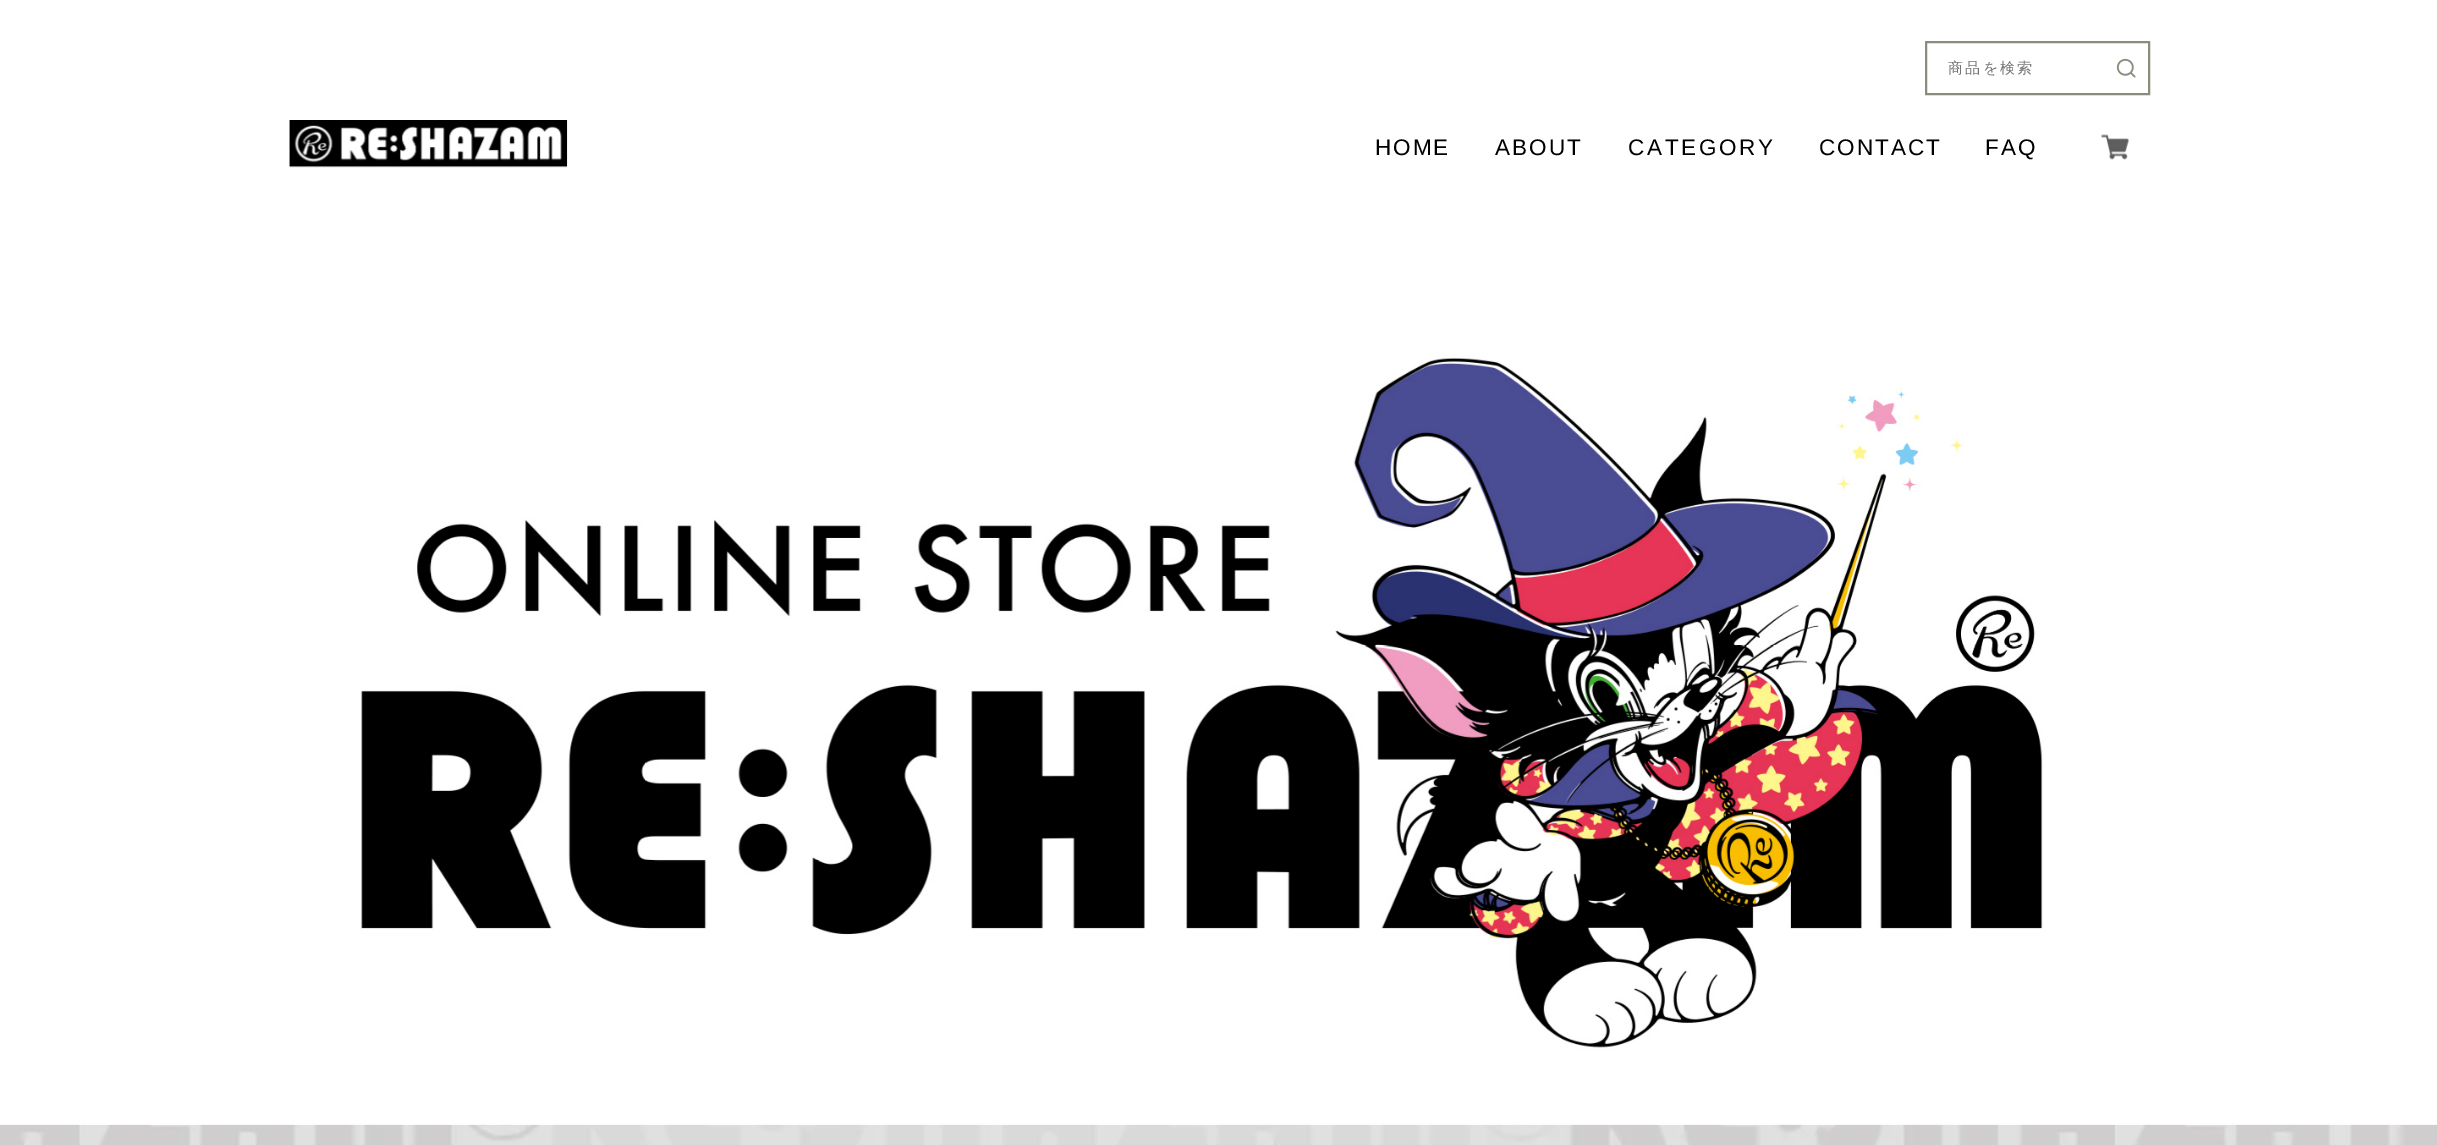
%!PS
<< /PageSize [2437 1145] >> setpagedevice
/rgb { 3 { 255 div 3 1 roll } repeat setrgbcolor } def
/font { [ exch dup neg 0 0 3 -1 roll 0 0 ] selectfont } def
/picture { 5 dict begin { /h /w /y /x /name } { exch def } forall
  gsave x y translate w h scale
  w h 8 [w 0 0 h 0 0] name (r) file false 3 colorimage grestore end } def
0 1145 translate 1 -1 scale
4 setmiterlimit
255 255 255 rgb
0 0 2437 1145 rectfill
(img/1.rgb) 0 1124 2437 21 picture
(img/2.rgb) 0 0 2437 1125 picture
(img/3.rgb) 289 120 279 48 picture
140 139 124 rgb
2 setlinewidth
1926 42 223 52 rectstroke
(img/4.rgb) 2116 58 20 20 picture
(img/5.rgb) 2101 134 28 26 picture
/WenQuanYiZenHei-Medium 15 font
117 117 117 rgb
1948 73 moveto 2.25 0 (商品を検索) ashow
/LiberationSans-Regular 22.5 font
0 0 0 rgb
1375 155 moveto 2 0 (HOME) ashow
1495 155 moveto 2 0 (ABOUT) ashow
1628 155 moveto 2.75 0 (CATEGORY) ashow
1819 155 moveto 2 0 (CONTACT) ashow
1985 155 moveto 2 0 (FAQ) ashow
showpage
